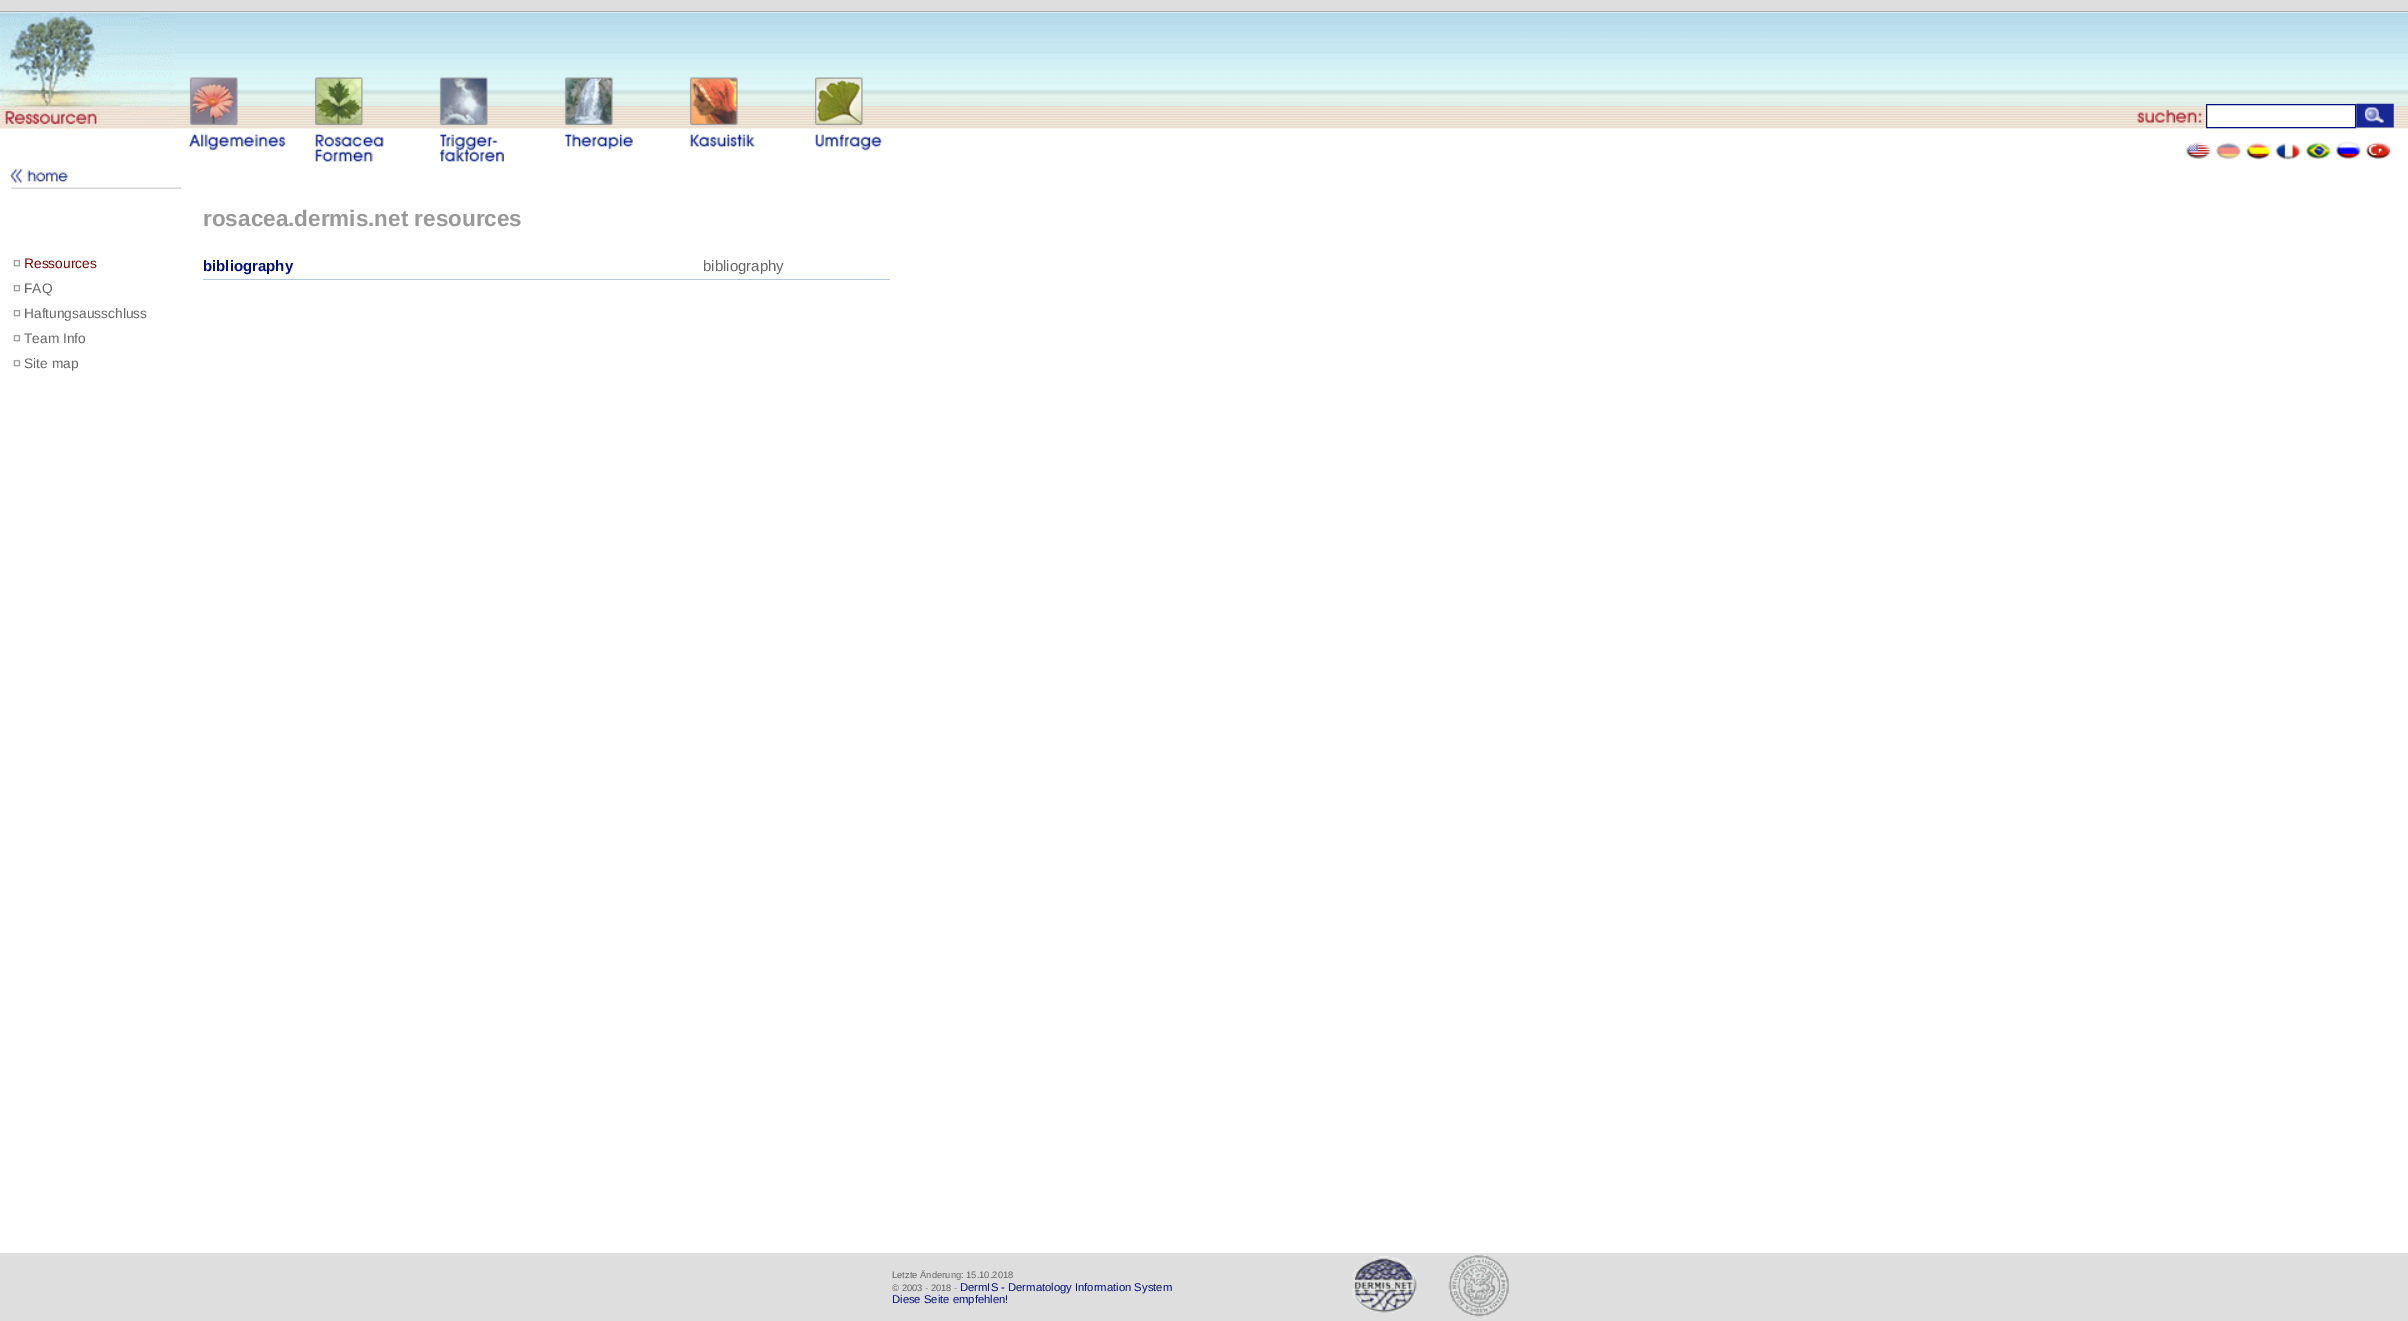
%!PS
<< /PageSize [2408 1321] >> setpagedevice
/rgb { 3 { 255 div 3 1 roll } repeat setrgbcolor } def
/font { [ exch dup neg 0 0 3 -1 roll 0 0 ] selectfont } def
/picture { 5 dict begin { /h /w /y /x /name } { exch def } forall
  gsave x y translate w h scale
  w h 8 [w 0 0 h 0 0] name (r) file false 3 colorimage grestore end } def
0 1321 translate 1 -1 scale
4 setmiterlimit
255 255 255 rgb
0 0 2408 1321 rectfill
222 222 222 rgb
0 0 2408 11 rectfill
170 170 170 rgb
0 11 2408 1 rectfill
(img/1.rgb) 0 12 175 117 picture
(img/2.rgb) 175 12 2233 117 picture
(img/3.rgb) 188 77 98 74 picture
(img/4.rgb) 314 77 70 85 picture
(img/5.rgb) 439 77 65 85 picture
(img/6.rgb) 564 77 69 74 picture
(img/7.rgb) 689 77 67 70 picture
(img/8.rgb) 814 77 68 74 picture
(img/9.rgb) 2137 109 65 14 picture
255 255 255 rgb
2206.5 104.5 moveto 2355.5 104.5 lineto 2355.5 127.5 lineto 2206.5 127.5 lineto closepath gsave fill grestore
0 16 128 rgb
stroke
(img/10.rgb) 2356 103 38 25 picture
(img/11.rgb) 2186 142 25 17 picture
(img/12.rgb) 2215 142 26 18 picture
(img/13.rgb) 2246 143 26 17 picture
(img/14.rgb) 2275 143 26 17 picture
(img/15.rgb) 2306 142 25 17 picture
(img/16.rgb) 2336 141 25 18 picture
(img/17.rgb) 2366 142 25 17 picture
181 200 219 rgb
203 279 687 1 rectfill
(img/18.rgb) 10 168 172 21 picture
(img/19.rgb) 13 259 8 8 picture
(img/19.rgb) 13 284 8 8 picture
(img/19.rgb) 13 309 8 8 picture
(img/19.rgb) 13 334 8 8 picture
(img/19.rgb) 13 359 8 8 picture
222 222 222 rgb
0 1253 2408 68 rectfill
(img/20.rgb) 1352 1255 157 62 picture
/LiberationSans-Bold 22.5 font
153 153 153 rgb
203 226 moveto (rosacea.dermis.net resources) show
/LiberationSans-Bold 15 font
0 16 128 rgb
203 271 moveto (bibliography) show
/LiberationSans-Regular 15 font
102 102 102 rgb
703 271 moveto (bibliography) show
/LiberationSans-Regular 13.75 font
128 0 0 rgb
24 268 moveto (Ressources) show
102 102 102 rgb
[
  [(FAQ) 24 293]
  [(Haftungsausschluss) 24 318]
  [(Team Info) 24 343]
  [(Site map) 24 368]
] { aload pop moveto show } forall
/LiberationSans-Regular 9.4 font
892 1278 moveto (Letzte Änderung: 15.10.2018) show
892 1291 moveto (© 2003 - 2018 -) show
/LiberationSans-Regular 11.25 font
0 16 128 rgb
960 1291 moveto (DermIS - Dermatology Information System) show
892 1303 moveto (Diese Seite empfehlen!) show
showpage
